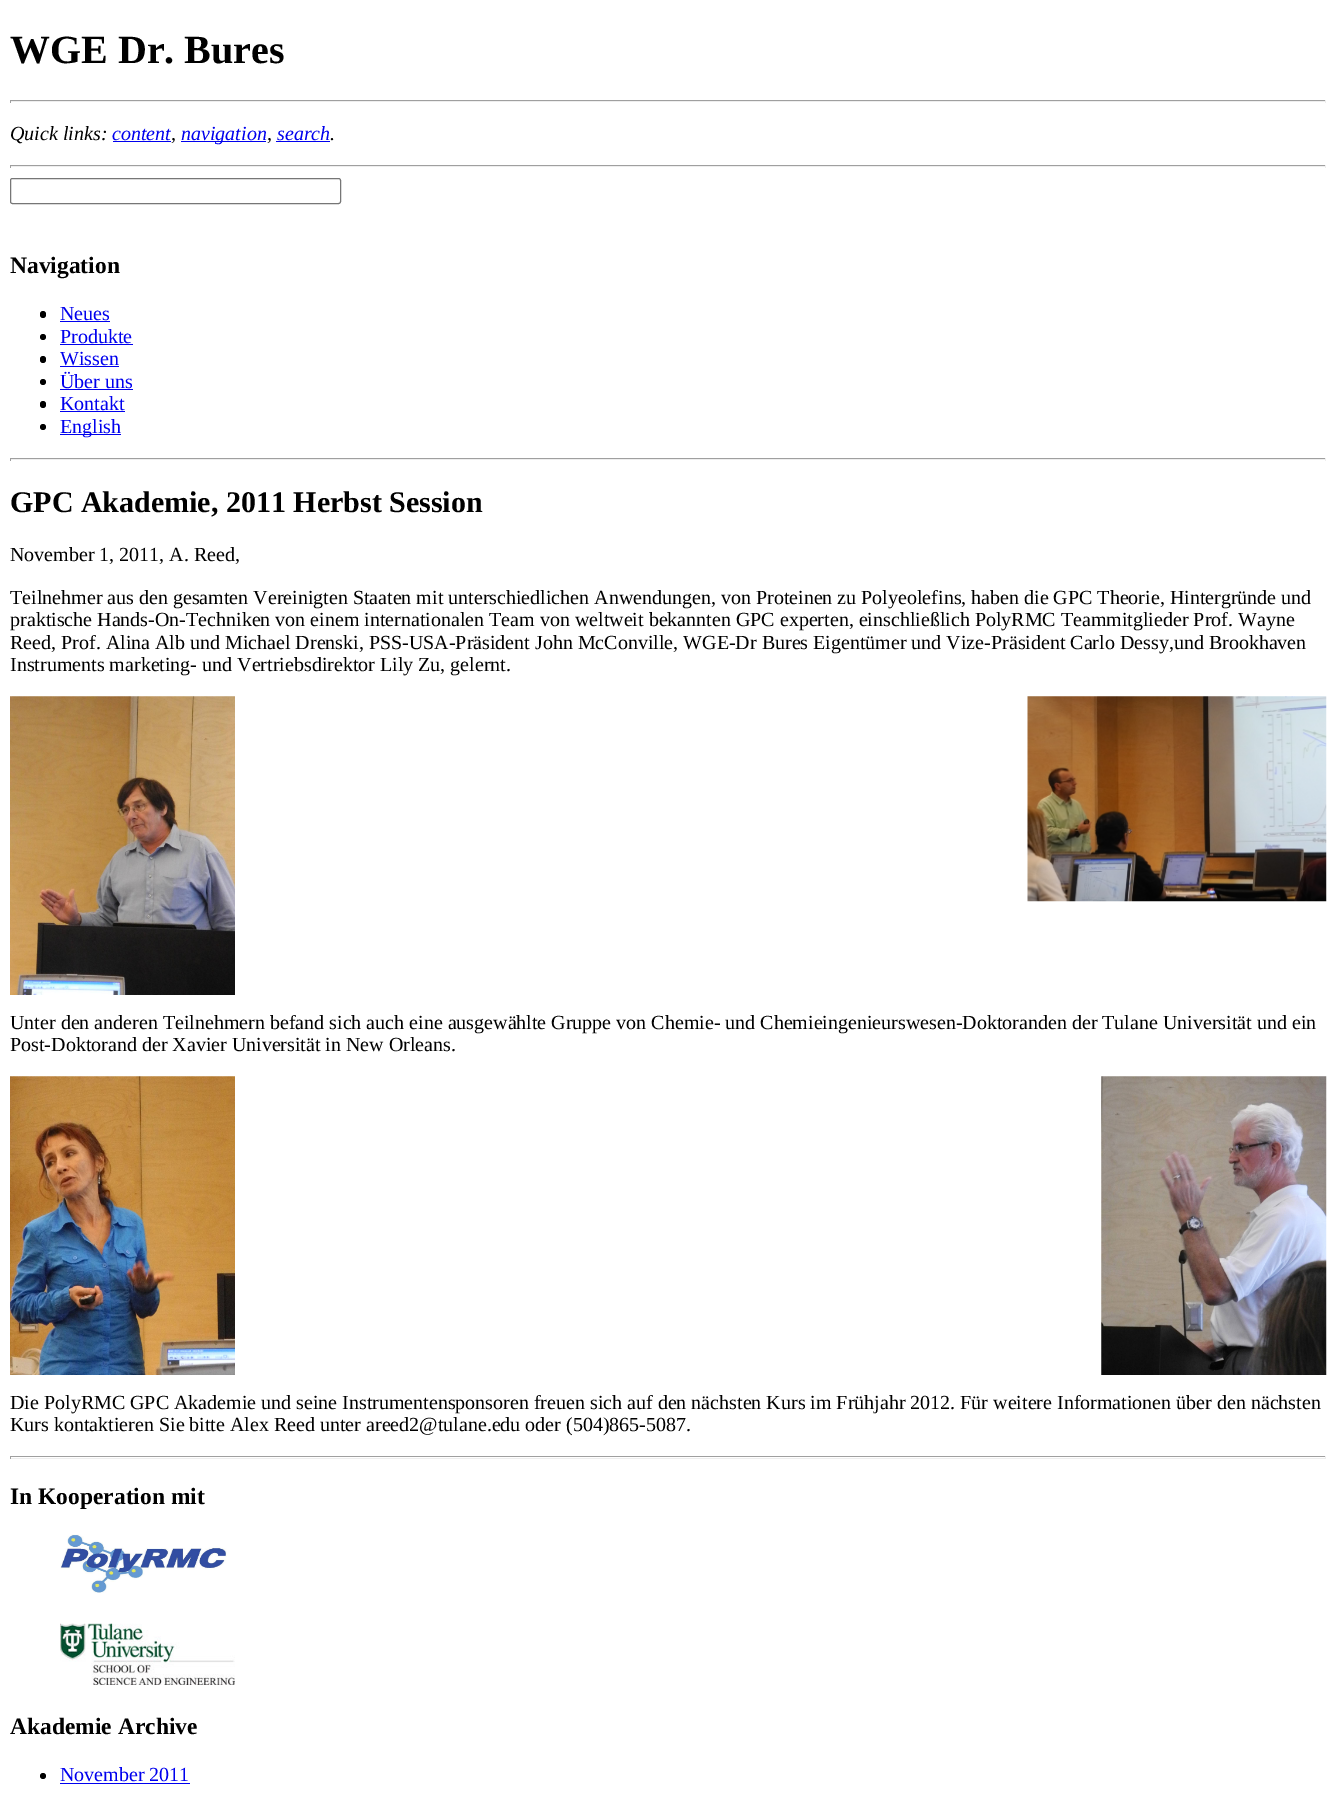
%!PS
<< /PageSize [1336 1803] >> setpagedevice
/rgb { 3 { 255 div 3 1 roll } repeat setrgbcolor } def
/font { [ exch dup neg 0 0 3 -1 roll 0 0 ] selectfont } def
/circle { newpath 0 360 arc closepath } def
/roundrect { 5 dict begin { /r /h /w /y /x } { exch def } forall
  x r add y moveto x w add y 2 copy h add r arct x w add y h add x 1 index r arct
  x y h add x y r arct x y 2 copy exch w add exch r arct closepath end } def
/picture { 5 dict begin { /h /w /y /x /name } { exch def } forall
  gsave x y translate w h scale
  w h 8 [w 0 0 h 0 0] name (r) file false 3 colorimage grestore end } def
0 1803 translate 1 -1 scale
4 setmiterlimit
255 255 255 rgb
0 0 1336 1803 rectfill
[
  [10 100 1316 1 159 159 159]
  [1325 100 1 3 238 238 238]
  [10 101 1316 1 238 238 238]
  [10 100 1 3 159 159 159]
  [113 141 58 1 0 0 238]
  [181 141 85 1 0 0 238]
  [276 141 54 1 0 0 238]
  [10 165 1316 1 159 159 159]
  [1325 165 1 3 238 238 238]
  [10 166 1316 1 238 238 238]
  [10 165 1 3 159 159 159]
] { aload pop rgb rectfill } forall
118 118 118 rgb
10.5 178.5 330 25 2 roundrect stroke
0 0 0 rgb
40 311 6 7 3 roundrect fill
0 0 238 rgb
60 321 50 1 rectfill
0 0 0 rgb
43 337 3 circle fill
0 0 238 rgb
60 344 73 1 rectfill
0 0 0 rgb
40 356 6 7 3 roundrect fill
0 0 238 rgb
60 366 59 1 rectfill
0 0 0 rgb
43 382 3 circle fill
0 0 238 rgb
60 389 73 1 rectfill
0 0 0 rgb
40 401 6 7 3 roundrect fill
0 0 238 rgb
60 411 65 1 rectfill
0 0 0 rgb
43 427 3 circle fill
[
  [60 434 61 1 0 0 238]
  [10 458 1316 1 159 159 159]
  [1325 458 1 3 238 238 238]
  [10 459 1316 1 238 238 238]
  [10 458 1 3 159 159 159]
] { aload pop rgb rectfill } forall
(img/1.rgb) 10 696 225 299 picture
(img/2.rgb) 1027 696 300 206 picture
(img/3.rgb) 10 1076 225 299 picture
(img/4.rgb) 1101 1076 226 299 picture
[
  [10 1456 1316 1 159 159 159]
  [1325 1456 1 3 238 238 238]
  [10 1458 1316 1 238 238 238]
  [10 1456 1 3 159 159 159]
] { aload pop rgb rectfill } forall
(img/5.rgb) 60 1534 167 59 picture
(img/6.rgb) 60 1623 175 62 picture
0 0 0 rgb
43 1776 3 circle fill
0 0 238 rgb
60 1783 130 1 rectfill
/LiberationSerif-Bold 40 font
0 0 0 rgb
10 63 moveto (WGE Dr. Bures) show
/LiberationSerif-Italic 20 font
10 140 moveto (Quick links:) show
0 0 238 rgb
112 140 moveto (content) show
0 0 0 rgb
171 140 moveto (,) show
0 0 238 rgb
181 140 moveto (navigation) show
0 0 0 rgb
267 140 moveto (,) show
0 0 238 rgb
277 140 moveto (search) show
0 0 0 rgb
330 140 moveto (.) show
/LiberationSerif-Bold 23.5 font
10 273 moveto (Navigation) show
/LiberationSerif-Regular 20 font
0 0 238 rgb
[
  [(Neues) 60 320]
  [(Produkte) 60 343]
  [(Wissen) 60 365]
  [(Über uns) 60 388]
  [(Kontakt) 60 410]
  [(English) 60 433]
] { aload pop moveto show } forall
/LiberationSerif-Bold 30 font
0 0 0 rgb
10 512 moveto (GPC Akademie, 2011 Herbst Session) show
/LiberationSerif-Regular 20 font
[
  [(November 1, 2011, A. Reed,) 10 561]
  [(Teilnehmer aus den gesamten Vereinigten Staaten mit unterschiedlichen Anwendungen, von Proteinen zu Polyeolefins, haben die GPC Theorie, Hintergründe und) 10 604]
  [(praktische Hands-On-Techniken von einem internationalen Team von weltweit bekannten GPC experten, einschließlich PolyRMC Teammitglieder Prof. Wayne) 10 626]
  [(Reed, Prof. Alina Alb und Michael Drenski, PSS-USA-Präsident John McConville, WGE-Dr Bures Eigentümer und Vize-Präsident Carlo Dessy,und Brookhaven) 10 649]
  [(Instruments marketing- und Vertriebsdirektor Lily Zu, gelernt.) 10 671]
  [(Unter den anderen Teilnehmern befand sich auch eine ausgewählte Gruppe von Chemie- und Chemieingenieurswesen-Doktoranden der Tulane Universität und ein) 10 1029]
  [(Post-Doktorand der Xavier Universität in New Orleans.) 10 1051]
  [(Die PolyRMC GPC Akademie und seine Instrumentensponsoren freuen sich auf den nächsten Kurs im Frühjahr 2012. Für weitere Informationen über den nächsten) 10 1409]
  [(Kurs kontaktieren Sie bitte Alex Reed unter areed2@tulane.edu oder \(504\)865-5087.) 10 1431]
] { aload pop moveto show } forall
/LiberationSerif-Bold 23.5 font
10 1504 moveto (In Kooperation mit) show
10 1734 moveto (Akademie Archive) show
/LiberationSerif-Regular 20 font
0 0 238 rgb
60 1781 moveto (November 2011) show
showpage
